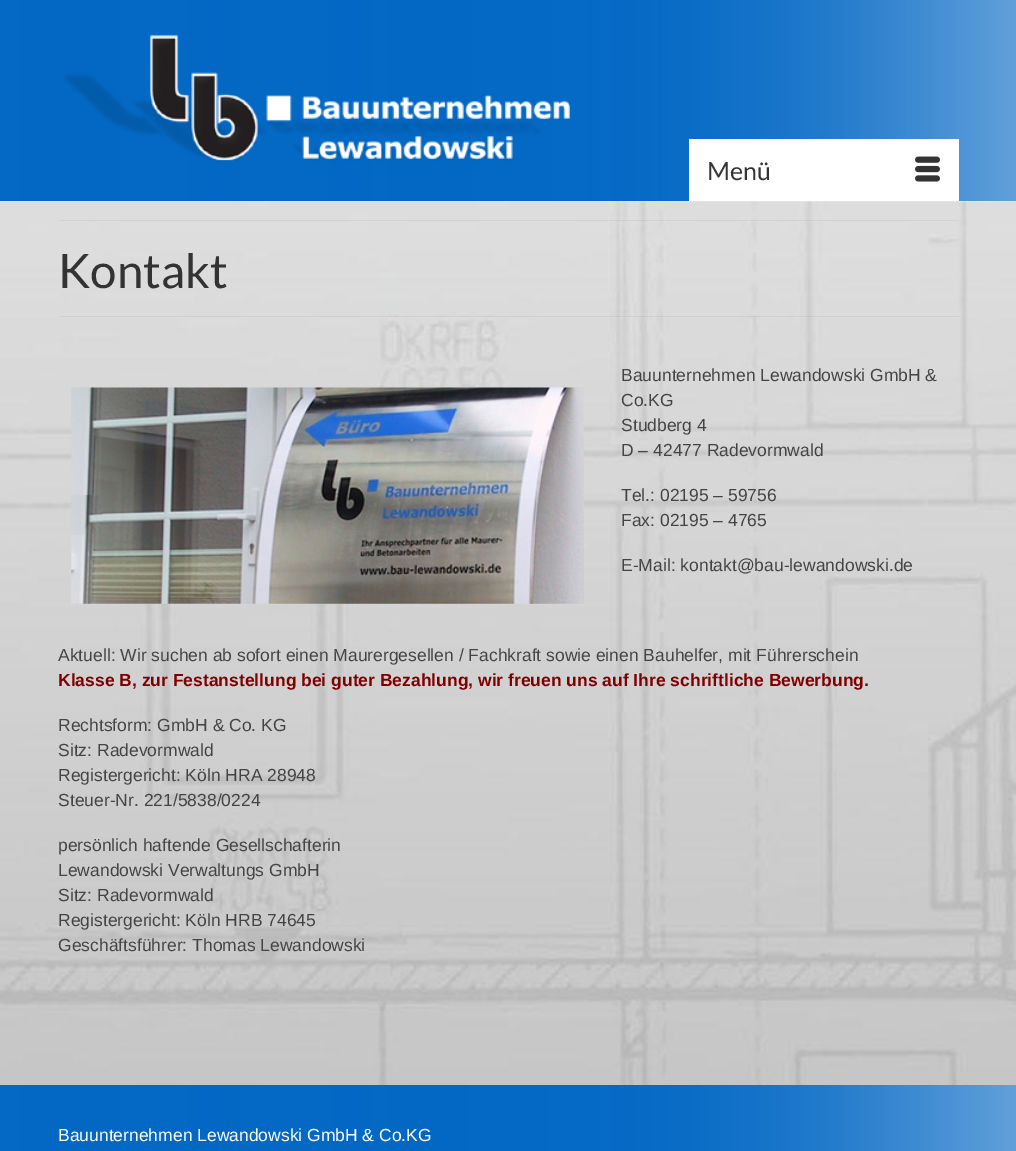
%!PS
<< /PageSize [1016 1151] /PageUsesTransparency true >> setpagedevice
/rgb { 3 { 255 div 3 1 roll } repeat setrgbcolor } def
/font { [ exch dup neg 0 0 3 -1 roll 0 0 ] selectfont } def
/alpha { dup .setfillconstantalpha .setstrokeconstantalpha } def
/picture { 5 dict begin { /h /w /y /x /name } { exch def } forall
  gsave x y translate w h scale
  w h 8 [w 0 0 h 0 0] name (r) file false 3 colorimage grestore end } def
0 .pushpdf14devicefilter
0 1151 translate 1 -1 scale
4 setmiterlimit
255 255 255 rgb
0 0 1016 1151 rectfill
(img/1.rgb) 0 0 1016 202 picture
(img/2.rgb) 63 34 507 128 picture
689 139 270 62 rectfill
(img/3.rgb) 915 156 25 26 picture
(img/4.rgb) 0 201 1016 884 picture
0.05 alpha
0 0 0 rgb
59 220 900 1 rectfill
59 316 900 1 rectfill
1 alpha
(img/5.rgb) 71 387 513 217 picture
(img/6.rgb) 0 1085 1016 66 picture
/Lato-Regular 25 font
51 51 51 rgb
707 180 moveto (Menü) show
/Lato-Regular 47.5 font
58 288 moveto (Kontakt) show
/LiberationSans-Regular 17.5 font
68 68 68 rgb
[
  [(Bauunternehmen Lewandowski GmbH &) 621 381]
  [(Co.KG) 621 406]
  [(Studberg 4) 621 431]
  [(D – 42477 Radevormwald) 621 456]
  [(Tel.: 02195 – 59756) 621 501]
  [(Fax: 02195 – 4765) 621 526]
  [(E-Mail: kontakt@bau-lewandowski.de) 621 571]
  [(Aktuell: Wir suchen ab sofort einen Maurergesellen / Fachkraft sowie einen Bauhelfer, mit Führerschein) 58 661]
] { aload pop moveto show } forall
/LiberationSans-Bold 17.5 font
128 0 0 rgb
58 686 moveto (Klasse B, zur Festanstellung bei guter Bezahlung, wir freuen uns auf Ihre schriftliche Bewerbung.) show
/LiberationSans-Regular 17.5 font
68 68 68 rgb
[
  [(Rechtsform: GmbH & Co. KG) 58 731]
  [(Sitz: Radevormwald) 58 756]
  [(Registergericht: Köln HRA 28948) 58 781]
  [(Steuer-Nr. 221/5838/0224) 58 806]
  [(persönlich haftende Gesellschafterin) 58 851]
  [(Lewandowski Verwaltungs GmbH) 58 876]
  [(Sitz: Radevormwald) 58 901]
  [(Registergericht: Köln HRB 74645) 58 926]
  [(Geschäftsführer: Thomas Lewandowski) 58 951]
] { aload pop moveto show } forall
255 255 255 rgb
58 1141 moveto (Bauunternehmen Lewandowski GmbH & Co.KG) show
.poppdf14devicefilter showpage
